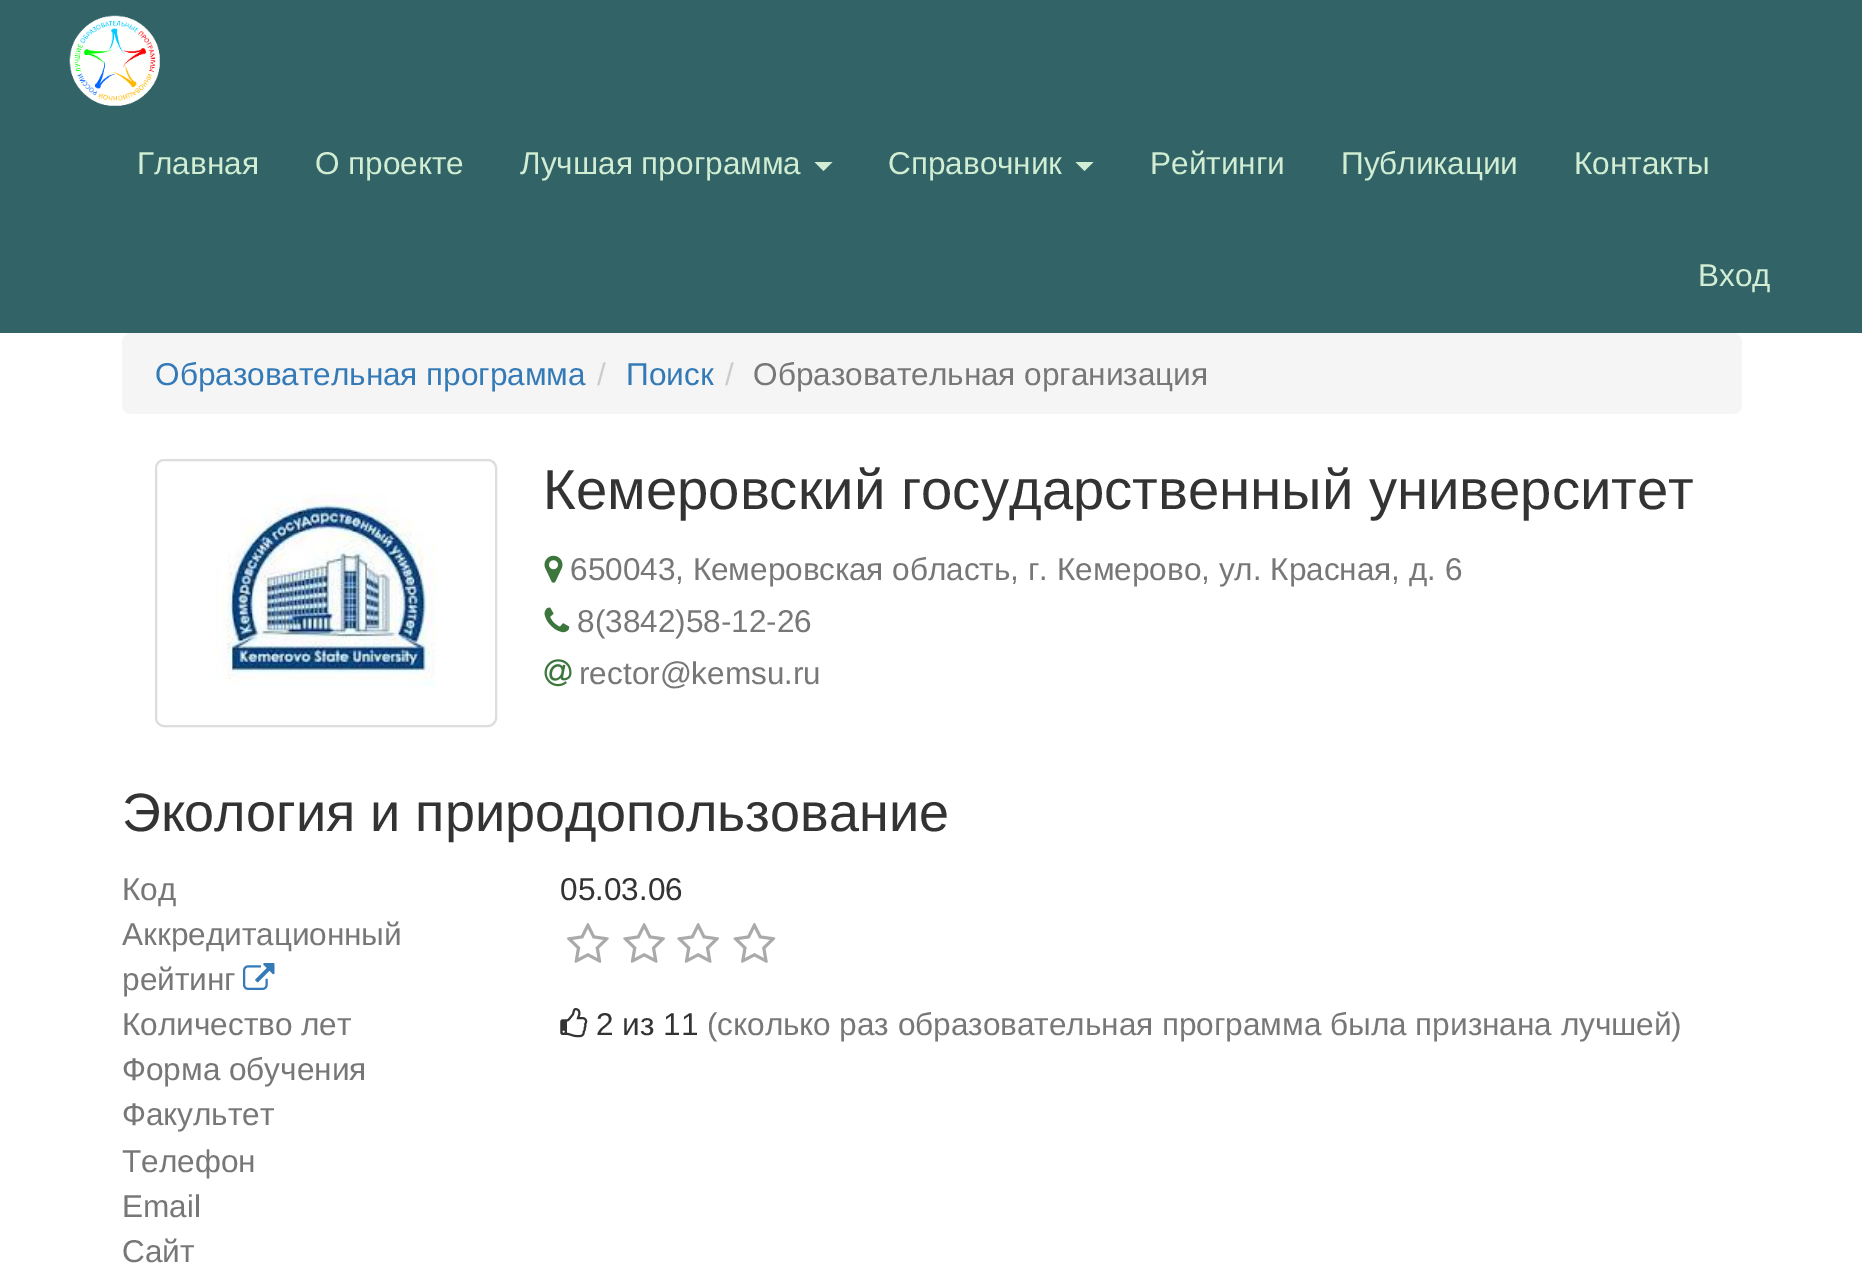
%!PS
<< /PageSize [1862 1286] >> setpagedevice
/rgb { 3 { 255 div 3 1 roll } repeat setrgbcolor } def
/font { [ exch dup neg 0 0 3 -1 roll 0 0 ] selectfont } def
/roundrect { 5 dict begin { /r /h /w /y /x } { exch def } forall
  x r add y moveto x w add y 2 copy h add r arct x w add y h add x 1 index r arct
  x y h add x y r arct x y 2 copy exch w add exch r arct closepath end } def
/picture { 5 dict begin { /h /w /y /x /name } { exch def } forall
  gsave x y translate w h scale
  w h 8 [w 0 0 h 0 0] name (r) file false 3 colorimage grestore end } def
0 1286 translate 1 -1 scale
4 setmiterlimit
255 255 255 rgb
0 0 1862 1286 rectfill
50 99 102 rgb
0 0 1862 333 rectfill
(img/1.rgb) 69 15 91 91 picture
209 238 212 rgb
814.5 162 moveto 832.5 162 lineto 823.5 171 lineto closepath fill
1075.5 162 moveto 1093.5 162 lineto 1084.5 171 lineto closepath fill
245 245 245 rgb
122 333 1620 81 9 roundrect fill
221 221 221 rgb
2 setlinewidth
156 460 340 266 8 roundrect stroke
(img/2.rgb) 216 494 220 193 picture
(img/3.rgb) 544 555 19 28 picture
(img/4.rgb) 544 607 26 26 picture
(img/5.rgb) 544 659 28 28 picture
(img/6.rgb) 243 963 32 27 picture
(img/7.rgb) 567 923 42 40 picture
(img/8.rgb) 623 923 42 40 picture
(img/8.rgb) 677 923 42 40 picture
(img/9.rgb) 733 923 43 40 picture
(img/10.rgb) 560 1008 28 30 picture
/LiberationSans-Regular 31.5 font
209 238 212 rgb
[
  [(Главная) 137 174]
  [(О проекте) 315 174]
  [(Лучшая программа) 520 174]
  [(Справочник) 888 174]
  [(Рейтинги) 1150 174]
  [(Публикации) 1341 174]
  [(Контакты) 1574 174]
  [(Вход) 1698 286]
] { aload pop moveto show } forall
51 122 183 rgb
155 385 moveto (Образовательная программа) show
204 204 204 rgb
597 385 moveto (/) show
51 122 183 rgb
626 385 moveto (Поиск) show
204 204 204 rgb
725 385 moveto (/) show
119 119 119 rgb
753 385 moveto (Образовательная организация) show
/LiberationSans-Regular 56.25 font
51 51 51 rgb
543 509 moveto (Кемеровский государственный университет) show
/LiberationSans-Regular 31.5 font
119 119 119 rgb
[
  [(650043, Кемеровская область, г. Кемерово, ул. Красная, д. 6) 570 580]
  [(8\(3842\)58-12-26) 577 632]
  [(rector@kemsu.ru) 579 684]
] { aload pop moveto show } forall
/LiberationSans-Regular 54 font
51 51 51 rgb
122 831 moveto (Экология и природопользование) show
/LiberationSans-Regular 31.5 font
119 119 119 rgb
122 900 moveto (Код) show
51 51 51 rgb
560 900 moveto (05.03.06) show
119 119 119 rgb
[
  [(Аккредитационный) 122 945]
  [(рейтинг) 122 990]
  [(Количество лет) 122 1035]
] { aload pop moveto show } forall
51 51 51 rgb
596 1035 moveto (2 из 11) show
119 119 119 rgb
[
  [(\(сколько раз образовательная программа была признана лучшей\)) 707 1035]
  [(Форма обучения) 122 1080]
  [(Факультет) 122 1125]
  [(Телефон) 122 1172]
  [(Email) 122 1217]
  [(Сайт) 122 1262]
] { aload pop moveto show } forall
showpage
